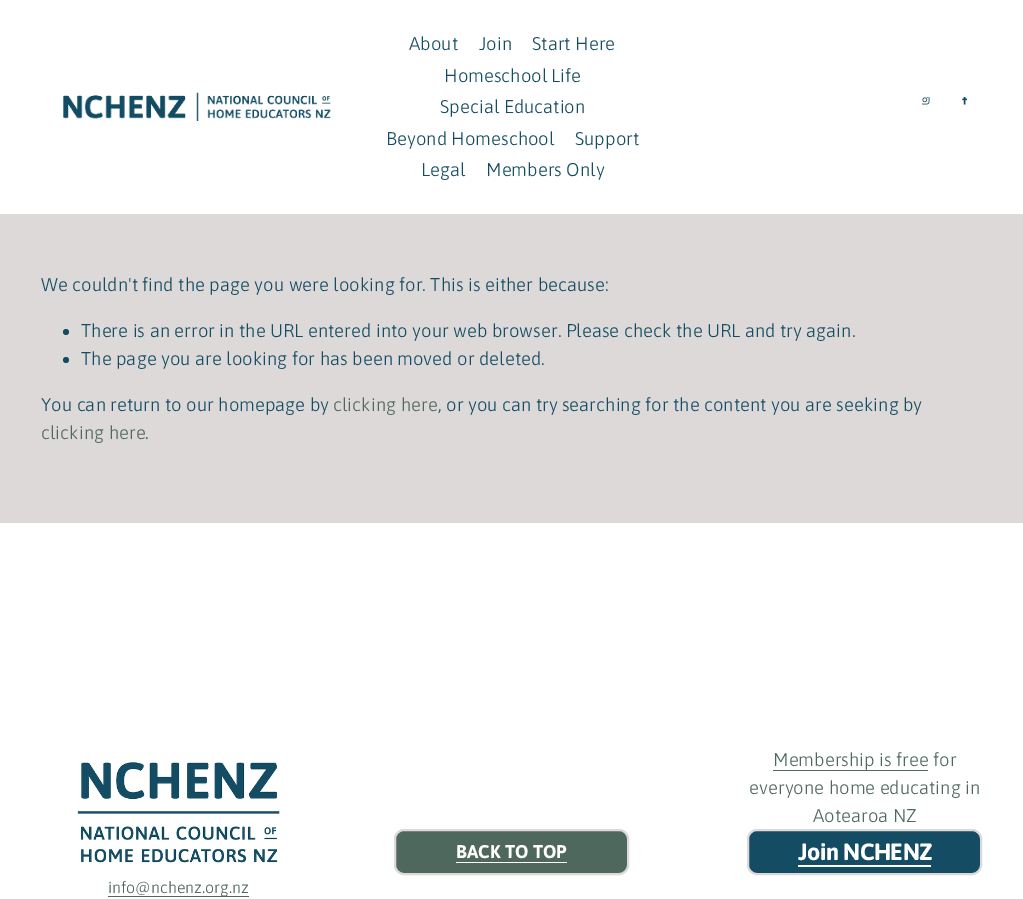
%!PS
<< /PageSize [1023 899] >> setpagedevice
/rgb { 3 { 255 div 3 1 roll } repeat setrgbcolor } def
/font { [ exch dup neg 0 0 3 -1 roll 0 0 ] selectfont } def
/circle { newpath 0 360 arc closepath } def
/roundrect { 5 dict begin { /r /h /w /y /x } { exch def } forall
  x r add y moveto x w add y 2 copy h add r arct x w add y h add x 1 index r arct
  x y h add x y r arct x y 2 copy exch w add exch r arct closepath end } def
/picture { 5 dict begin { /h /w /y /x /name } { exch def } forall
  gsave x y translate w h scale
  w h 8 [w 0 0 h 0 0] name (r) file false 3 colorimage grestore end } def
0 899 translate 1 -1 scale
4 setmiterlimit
221 217 216 rgb
0 0 1023 899 rectfill
255 255 255 rgb
0 0 1023 214 rectfill
(img/1.rgb) 63 92 268 29 picture
(img/2.rgb) 922 97 8 8 picture
(img/3.rgb) 962 97 6 8 picture
19 76 99 rgb
66 332 3 circle fill
66 360 3 circle fill
255 255 255 rgb
0 523 1023 376 rectfill
(img/4.rgb) 77 762 203 101 picture
79 104 93 rgb
773 770 155 1 rectfill
395 830 233 44 9 roundrect gsave fill grestore
221 217 216 rgb
2 setlinewidth
stroke
255 255 255 rgb
456 862 111 1 rectfill
19 76 99 rgb
748 830 233 44 9 roundrect gsave fill grestore
221 217 216 rgb
stroke
255 255 255 rgb
798 865 133 2 rectfill
79 104 93 rgb
108 896 141 1 rectfill
/Asap-Light 18.45 font
19 76 99 rgb
[
  [(About) 409 50]
  [(Join) 479 50]
  [(Start Here) 532 50]
  [(Homeschool Life) 444 82]
  [(Special Education) 440 113]
  [(Beyond Homeschool) 386 145]
  [(Support) 575 145]
  [(Legal) 421 176]
  [(Members Only) 486 176]
  [(We couldn't find the page you were looking for. This is either because:) 41 291]
  [(There is an error in the URL entered into your web browser. Please check the URL and try again.) 81 337]
  [(The page you are looking for has been moved or deleted.) 81 365]
  [(You can return to our homepage by) 41 411]
] { aload pop moveto show } forall
79 104 93 rgb
333 411 moveto (clicking here) show
19 76 99 rgb
438 411 moveto (, or you can try searching for the content you are seeking by) show
79 104 93 rgb
41 439 moveto (clicking here) show
19 76 99 rgb
145 439 moveto (.) show
79 104 93 rgb
[
  [(Membership is free for) 773 766]
  [(everyone home educating in) 749 794]
  [(Aotearoa NZ) 813 822]
] { aload pop moveto show } forall
/Asap-Bold 18.45 font
255 255 255 rgb
456 858 moveto (BACK TO TOP) show
/Asap-Bold 23.5 font
798 860 moveto -0.5 0 (Join NCHENZ) ashow
/Asap-Light 16 font
79 104 93 rgb
108 893 moveto (info@nchenz.org.nz) show
showpage
